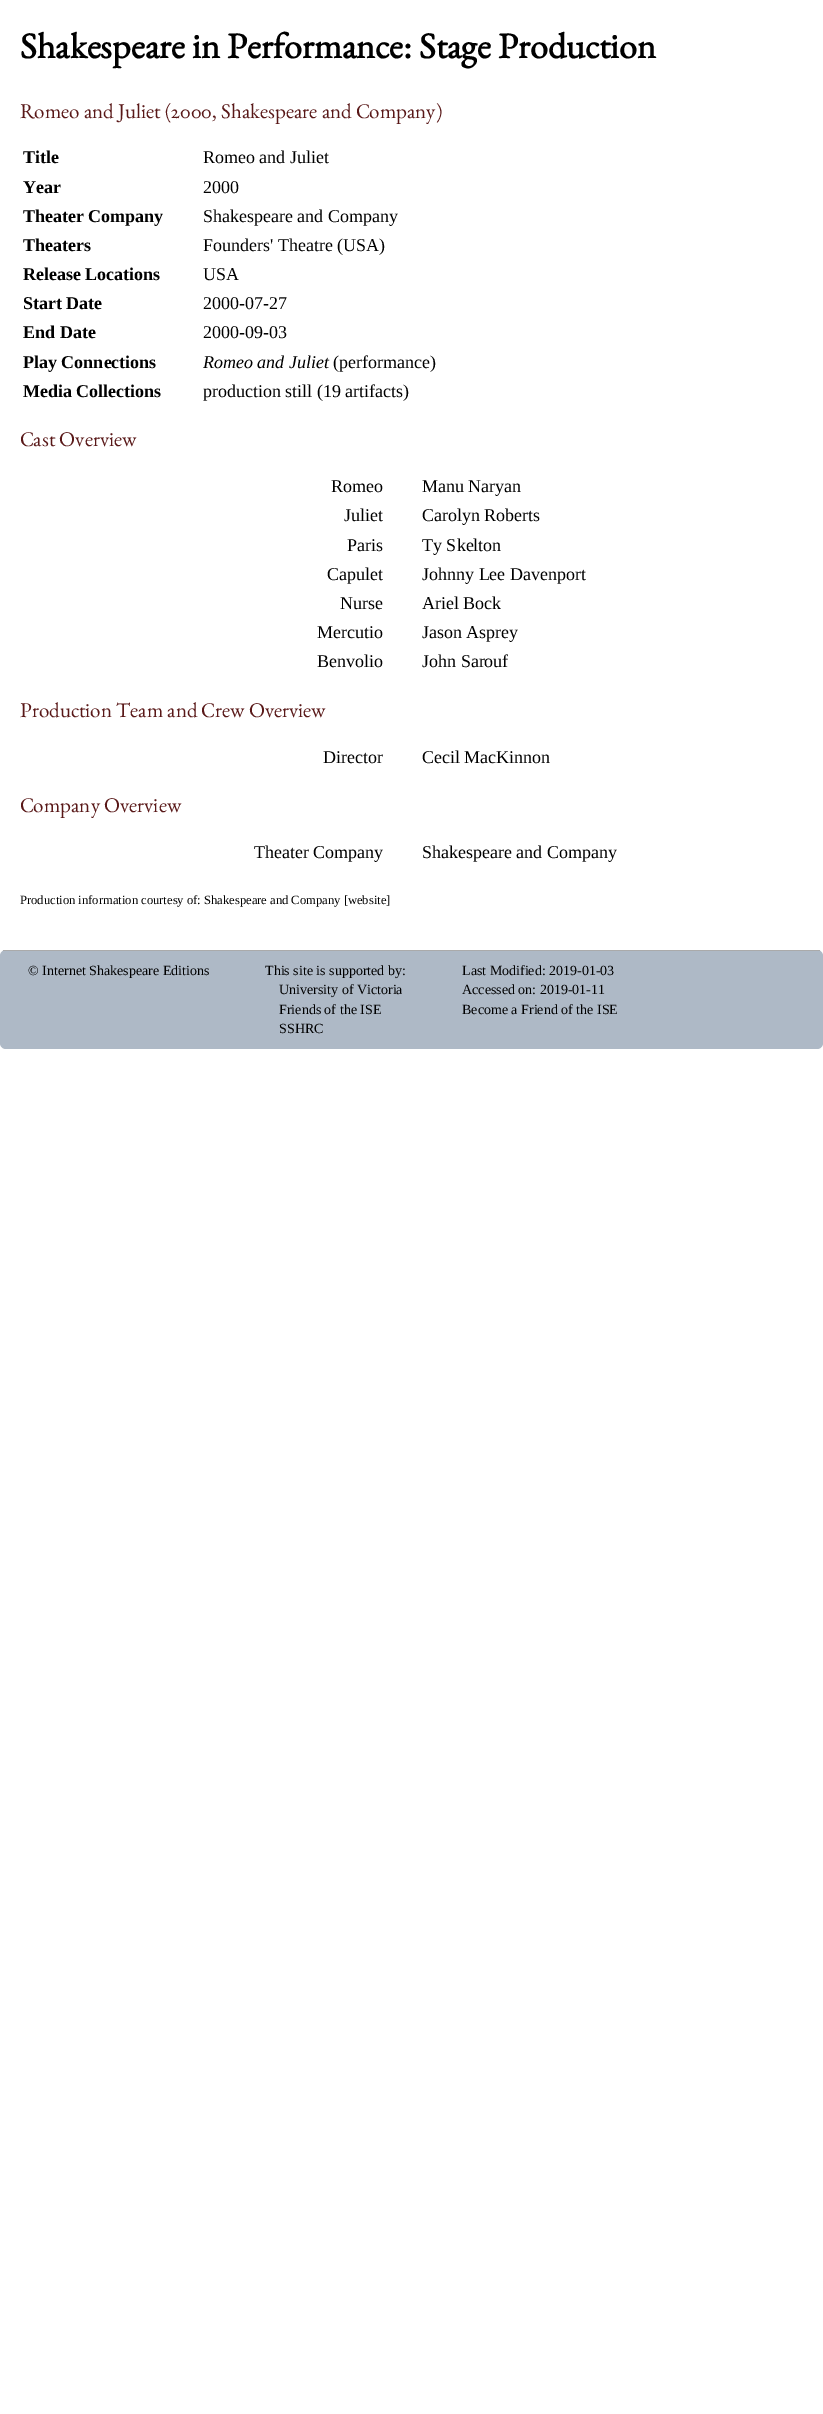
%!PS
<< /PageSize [823 2414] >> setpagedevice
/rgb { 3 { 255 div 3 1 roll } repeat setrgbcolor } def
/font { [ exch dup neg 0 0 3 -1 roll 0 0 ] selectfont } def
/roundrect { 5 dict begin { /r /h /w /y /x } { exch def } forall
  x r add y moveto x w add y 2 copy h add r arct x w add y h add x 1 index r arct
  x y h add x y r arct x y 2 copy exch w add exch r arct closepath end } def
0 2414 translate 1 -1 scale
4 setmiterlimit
255 255 255 rgb
0 0 823 2414 rectfill
174 185 198 rgb
0 950 823 99 6 roundrect fill
170 170 170 rgb
3 950 817 1 rectfill
/EBGaramond-Bold 36 font
0 0 0 rgb
20 58 moveto (Shakespeare in Performance: Stage Production) show
/EBGaramond-Regular 21 font
89 24 24 rgb
20 118 moveto (Romeo and Juliet \(2000, Shakespeare and Company\)) show
/LiberationSerif-Bold 18 font
0 0 0 rgb
23 163 moveto (Title) show
/LiberationSerif-Regular 18 font
203 163 moveto (Romeo and Juliet) show
/LiberationSerif-Bold 18 font
23 193 moveto (Year) show
/LiberationSerif-Regular 18 font
203 193 moveto (2000) show
/LiberationSerif-Bold 18 font
23 222 moveto (Theater Company) show
/LiberationSerif-Regular 18 font
203 222 moveto (Shakespeare and Company) show
/LiberationSerif-Bold 18 font
23 251 moveto (Theaters) show
/LiberationSerif-Regular 18 font
203 251 moveto (Founders' Theatre \(USA\)) show
/LiberationSerif-Bold 18 font
23 280 moveto (Release Locations) show
/LiberationSerif-Regular 18 font
203 280 moveto (USA) show
/LiberationSerif-Bold 18 font
23 309 moveto (Start Date) show
/LiberationSerif-Regular 18 font
203 309 moveto (2000-07-27) show
/LiberationSerif-Bold 18 font
23 338 moveto (End Date) show
/LiberationSerif-Regular 18 font
203 338 moveto (2000-09-03) show
/LiberationSerif-Bold 18 font
23 368 moveto (Play Connections) show
/LiberationSerif-Italic 18 font
203 368 moveto (Romeo and Juliet) show
/LiberationSerif-Regular 18 font
333 368 moveto (\(performance\)) show
/LiberationSerif-Bold 18 font
23 397 moveto (Media Collections) show
/LiberationSerif-Regular 18 font
203 397 moveto (production still \(19 artifacts\)) show
/EBGaramond-Regular 21 font
89 24 24 rgb
20 446 moveto (Cast Overview) show
/LiberationSerif-Regular 18 font
0 0 0 rgb
[
  [(Romeo) 331 492]
  [(Manu Naryan) 422 492]
  [(Juliet) 344 521]
  [(Carolyn Roberts) 422 521]
  [(Paris) 347 551]
  [(Ty Skelton) 422 551]
  [(Capulet) 327 580]
  [(Johnny Lee Davenport) 422 580]
  [(Nurse) 340 609]
  [(Ariel Bock) 422 609]
  [(Mercutio) 317 638]
  [(Jason Asprey) 422 638]
  [(Benvolio) 317 667]
  [(John Sarouf) 422 667]
] { aload pop moveto show } forall
/EBGaramond-Regular 21 font
89 24 24 rgb
20 717 moveto (Production Team and Crew Overview) show
/LiberationSerif-Regular 18 font
0 0 0 rgb
323 763 moveto (Director) show
422 763 moveto (Cecil MacKinnon) show
/EBGaramond-Regular 21 font
89 24 24 rgb
20 812 moveto (Company Overview) show
/LiberationSerif-Regular 18 font
0 0 0 rgb
254 858 moveto (Theater Company) show
422 858 moveto (Shakespeare and Company) show
/LiberationSerif-Regular 12.6 font
20 904 moveto (Production information courtesy of: Shakespeare and Company [website]) show
/LiberationSerif-Regular 14 font
[
  [(© Internet Shakespeare Editions) 28 975]
  [(This site is supported by:) 265 975]
  [(University of Victoria) 279 994]
  [(Friends of the ISE) 279 1014]
  [(SSHRC) 279 1033]
  [(Last Modified: 2019-01-03) 462 975]
  [(Accessed on: 2019-01-11) 462 994]
  [(Become a Friend of the ISE) 462 1014]
] { aload pop moveto show } forall
showpage
